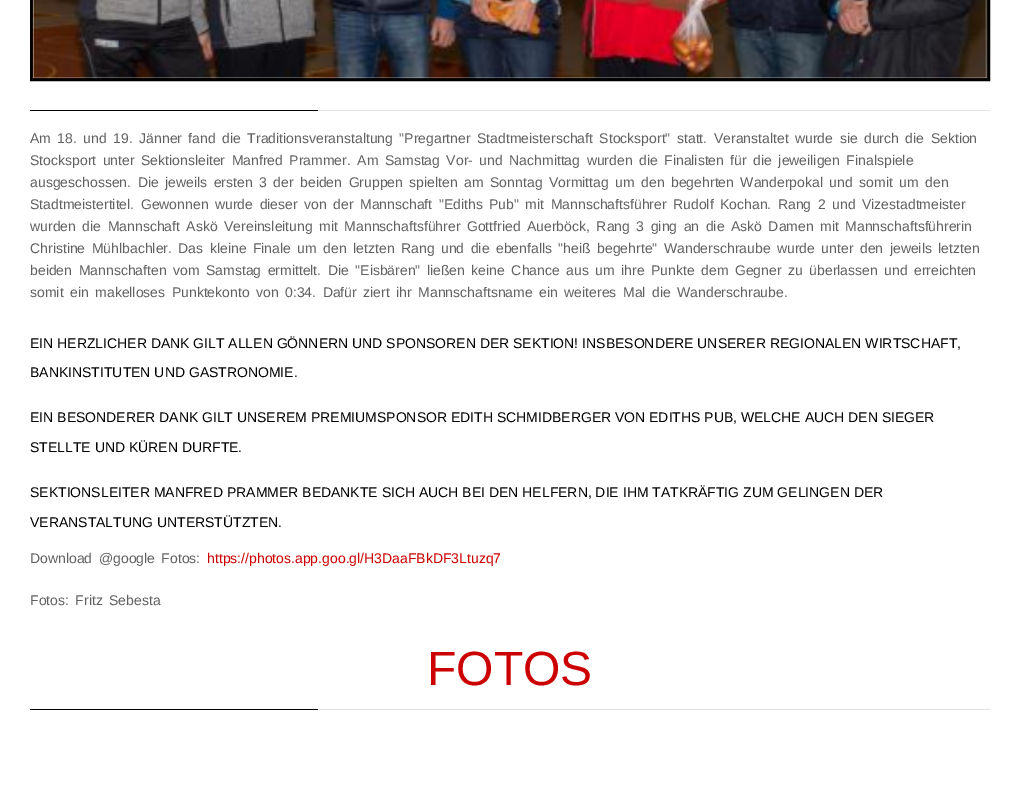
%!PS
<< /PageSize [1020 787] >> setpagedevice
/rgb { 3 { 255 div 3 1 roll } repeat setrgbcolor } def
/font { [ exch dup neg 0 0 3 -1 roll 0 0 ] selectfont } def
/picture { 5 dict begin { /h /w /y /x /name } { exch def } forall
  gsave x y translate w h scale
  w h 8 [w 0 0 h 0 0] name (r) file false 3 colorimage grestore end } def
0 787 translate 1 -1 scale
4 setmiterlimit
255 255 255 rgb
0 0 1020 787 rectfill
0 0 0 rgb
3 setlinewidth
31.5 -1.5 957 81 rectstroke
(img/1.rgb) 31 0 957 80 picture
[
  [30 110 288 1 0 0 0]
  [318 110 672 1 225 225 225]
  [30 709 288 1 0 0 0]
  [318 709 672 1 225 225 225]
] { aload pop rgb rectfill } forall
/LiberationSans-Regular 14 font
97 97 97 rgb
30 143 moveto 2.6 0 32 (Am 18. und 19. Jänner fand die Traditionsveranstaltung "Pregartner Stadtmeisterschaft Stocksport" statt. Veranstaltet wurde sie durch die Sektion) widthshow
30 165 moveto 2.6 0 32 (Stocksport unter Sektionsleiter Manfred Prammer. Am Samstag Vor- und Nachmittag wurden die Finalisten für die jeweiligen Finalspiele) widthshow
30 187 moveto 2.6 0 32 (ausgeschossen. Die jeweils ersten 3 der beiden Gruppen spielten am Sonntag Vormittag um den begehrten Wanderpokal und somit um den) widthshow
30 209 moveto 2.6 0 32 (Stadtmeistertitel. Gewonnen wurde dieser von der Mannschaft "Ediths Pub" mit Mannschaftsführer Rudolf Kochan. Rang 2 und Vizestadtmeister) widthshow
30 231 moveto 2.6 0 32 (wurden die Mannschaft Askö Vereinsleitung mit Mannschaftsführer Gottfried Auerböck, Rang 3 ging an die Askö Damen mit Mannschaftsführerin) widthshow
30 253 moveto 2.6 0 32 (Christine Mühlbachler. Das kleine Finale um den letzten Rang und die ebenfalls "heiß begehrte" Wanderschraube wurde unter den jeweils letzten) widthshow
30 275 moveto 2.6 0 32 (beiden Mannschaften vom Samstag ermittelt. Die "Eisbären" ließen keine Chance aus um ihre Punkte dem Gegner zu überlassen und erreichten) widthshow
30 297 moveto 2.6 0 32 (somit ein makelloses Punktekonto von 0:34. Dafür ziert ihr Mannschaftsname ein weiteres Mal die Wanderschraube.) widthshow
0 0 0 rgb
[
  [(EIN HERZLICHER DANK GILT ALLEN GÖNNERN UND SPONSOREN DER SEKTION! INSBESONDERE UNSERER REGIONALEN WIRTSCHAFT,) 30 348]
  [(BANKINSTITUTEN UND GASTRONOMIE.) 30 377]
  [(EIN BESONDERER DANK GILT UNSEREM PREMIUMSPONSOR EDITH SCHMIDBERGER VON EDITHS PUB, WELCHE AUCH DEN SIEGER) 30 422]
  [(STELLTE UND KÜREN DURFTE.) 30 452]
  [(SEKTIONSLEITER MANFRED PRAMMER BEDANKTE SICH AUCH BEI DEN HELFERN, DIE IHM TATKRÄFTIG ZUM GELINGEN DER) 30 497]
  [(VERANSTALTUNG UNTERSTÜTZTEN.) 30 527]
] { aload pop moveto show } forall
97 97 97 rgb
30 563 moveto 2.6 0 32 (Download @google Fotos:) widthshow
204 0 0 rgb
207 563 moveto (https://photos.app.goo.gl/H3DaaFBkDF3Ltuzq7) show
97 97 97 rgb
30 605 moveto 2.6 0 32 (Fotos: Fritz Sebesta) widthshow
/LiberationSans-Regular 48 font
204 0 0 rgb
427 685 moveto (FOTOS) show
showpage
